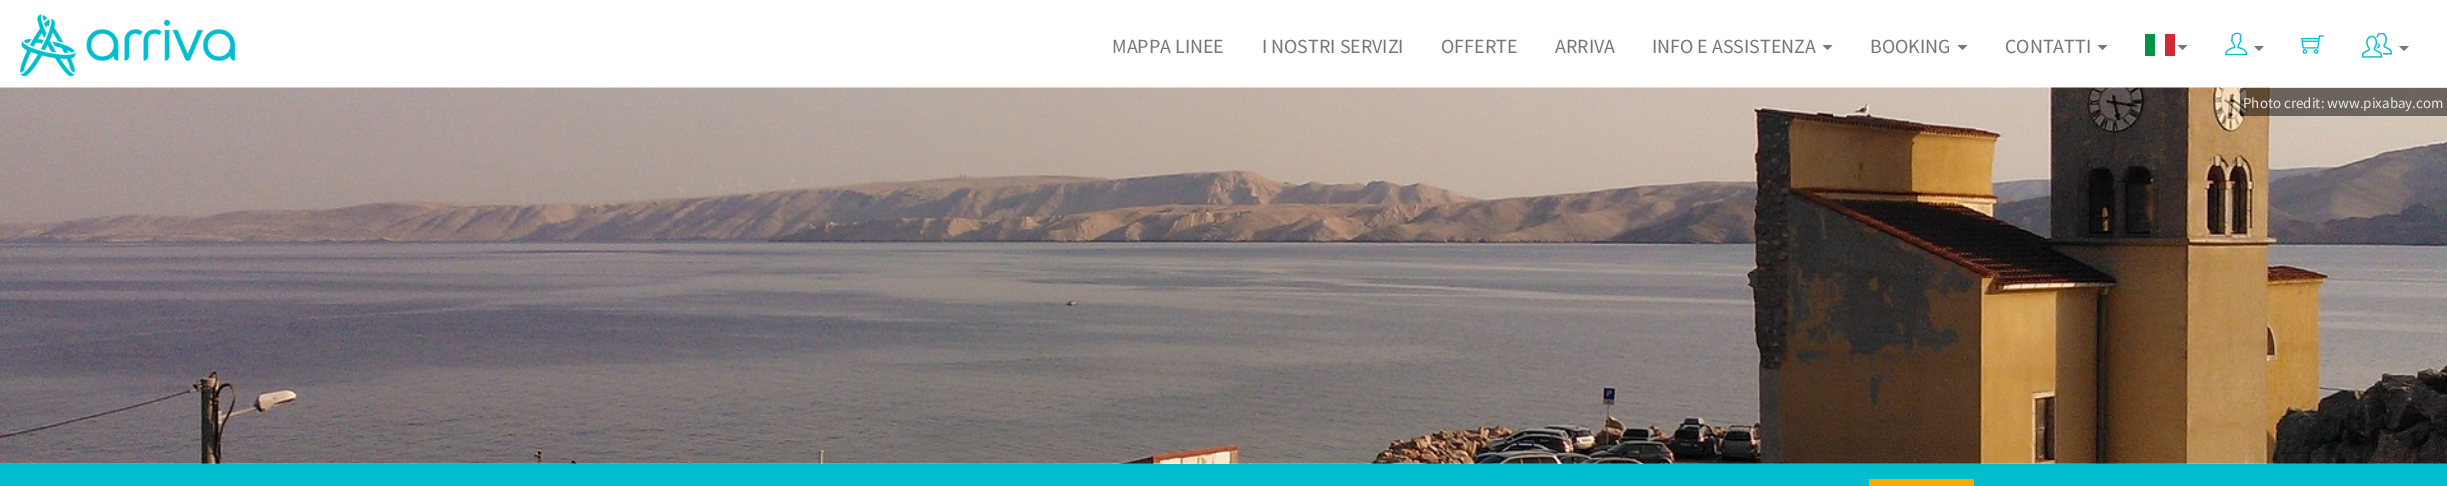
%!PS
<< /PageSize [2447 486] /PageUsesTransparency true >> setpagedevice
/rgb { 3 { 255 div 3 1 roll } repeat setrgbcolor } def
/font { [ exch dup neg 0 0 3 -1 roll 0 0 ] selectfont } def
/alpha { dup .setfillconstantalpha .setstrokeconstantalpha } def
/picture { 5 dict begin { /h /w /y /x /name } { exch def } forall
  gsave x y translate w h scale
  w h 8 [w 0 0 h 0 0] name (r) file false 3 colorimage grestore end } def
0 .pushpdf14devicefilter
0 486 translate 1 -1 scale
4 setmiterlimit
255 255 255 rgb
0 0 2447 486 rectfill
(img/1.rgb) 20 13 215 64 picture
119 119 119 rgb
1822.5 45 moveto 1832.5 45 lineto 1827.5 50 lineto closepath fill
1957.5 45 moveto 1967.5 45 lineto 1962.5 50 lineto closepath fill
2097.5 45 moveto 2107.5 45 lineto 2102.5 50 lineto closepath fill
0 146 70 rgb
2145 34 10 22 rectfill
206 43 55 rgb
2165 34 10 22 rectfill
119 119 119 rgb
2177.5 45 moveto 2187.5 45 lineto 2182.5 50 lineto closepath fill
(img/2.rgb) 2225 32 23 24 picture
2254 46 moveto 2264 46 lineto 2259 51 lineto closepath fill
(img/3.rgb) 2301 35 23 19 picture
(img/4.rgb) 2361 33 32 25 picture
2399 46 moveto 2409 46 lineto 2404 51 lineto closepath fill
(img/5.rgb) 0 87 2447 377 picture
0.5 alpha
[
  [2240 88 207 28 0 0 0]
] { aload pop rgb rectfill } forall
1 alpha
[
  [0 464 2447 22 0 190 205]
  [1869 479 105 7 255 169 0]
] { aload pop rgb rectfill } forall
/SourceSansPro-Regular 20 font
119 119 119 rgb
[
  [(MAPPA LINEE) 1112 53]
  [(I NOSTRI SERVIZI) 1262 53]
  [(OFFERTE) 1441 53]
  [(ARRIVA) 1555 53]
  [(INFO E ASSISTENZA) 1652 53]
  [(BOOKING) 1870 53]
  [(CONTATTI) 2005 53]
] { aload pop moveto show } forall
/SourceSansPro-Regular 15 font
232 232 232 rgb
2243 108 moveto (Photo credit: www.pixabay.com) show
.poppdf14devicefilter showpage
